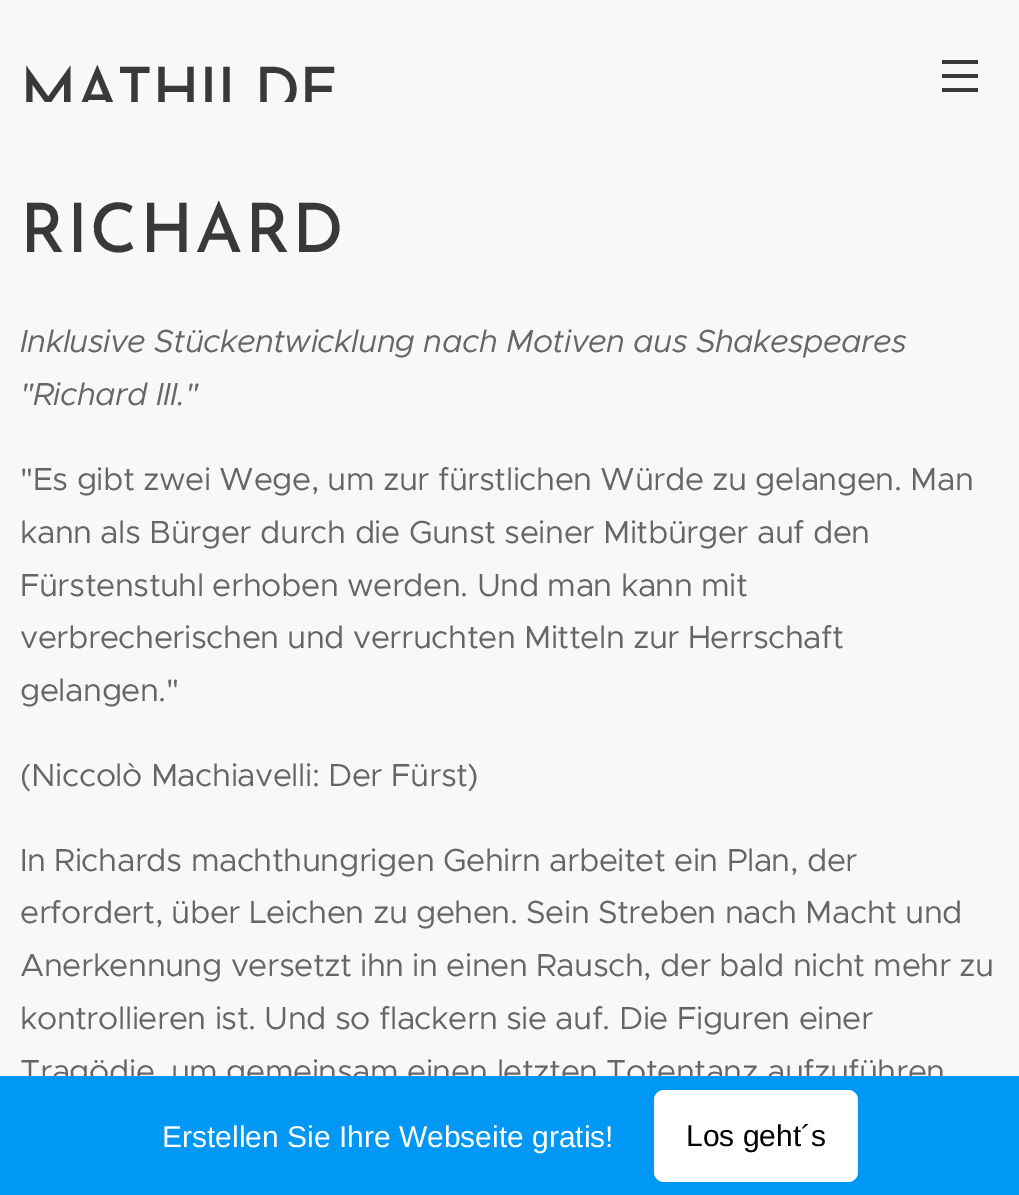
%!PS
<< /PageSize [1019 1195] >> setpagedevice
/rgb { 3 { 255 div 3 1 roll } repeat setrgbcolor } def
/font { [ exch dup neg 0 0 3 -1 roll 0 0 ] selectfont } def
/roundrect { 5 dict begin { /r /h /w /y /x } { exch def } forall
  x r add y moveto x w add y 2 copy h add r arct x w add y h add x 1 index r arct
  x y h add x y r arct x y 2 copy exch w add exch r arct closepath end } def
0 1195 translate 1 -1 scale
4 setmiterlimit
249 247 250 rgb
0 0 1019 1195 rectfill
[
  [942 74 36 4 57 57 57]
  [942 60 36 4 57 57 57]
  [942 88 36 4 57 57 57]
] { aload pop rgb rectfill } forall
gsave
12 48 598 54 rectclip
/JosefinSans-Medium 61 font
20 111 moveto -1 0 (MATHILDE) ashow
grestore
/JosefinSans-Medium 68 font
20 252 moveto 2 0 (RICHARD) ashow
/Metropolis-Italic 32 font
102 102 102 rgb
20 352 moveto -0.48 0 (Inklusive Stückentwicklung nach Motiven aus Shakespeares) ashow
20 405 moveto -0.48 0 ("Richard III.") ashow
/Metropolis-Regular 32 font
20 490 moveto -0.48 0 ("Es gibt zwei Wege, um zur fürstlichen Würde zu gelangen. Man) ashow
20 543 moveto -0.48 0 (kann als Bürger durch die Gunst seiner Mitbürger auf den) ashow
20 596 moveto -0.48 0 (Fürstenstuhl erhoben werden. Und man kann mit) ashow
20 648 moveto -0.48 0 (verbrecherischen und verruchten Mitteln zur Herrschaft) ashow
20 701 moveto -0.48 0 (gelangen.") ashow
20 786 moveto -0.48 0 (\(Niccolò Machiavelli: Der Fürst\)) ashow
20 871 moveto -0.48 0 (In Richards machthungrigen Gehirn arbeitet ein Plan, der) ashow
20 923 moveto -0.48 0 (erfordert, über Leichen zu gehen. Sein Streben nach Macht und) ashow
20 976 moveto -0.48 0 (Anerkennung versetzt ihn in einen Rausch, der bald nicht mehr zu) ashow
20 1029 moveto -0.48 0 (kontrollieren ist. Und so flackern sie auf. Die Figuren einer) ashow
20 1082 moveto -0.48 0 (Tragödie, um gemeinsam einen letzten Totentanz aufzuführen) ashow
0 151 245 rgb
0 1076 1019 119 rectfill
/LiberationSans-Regular 30 font
255 255 255 rgb
162 1147 moveto (Erstellen Sie Ihre Webseite gratis!) show
654 1090 204 92 10 roundrect fill
0 0 0 rgb
686 1146 moveto (Los geht´s) show
showpage
